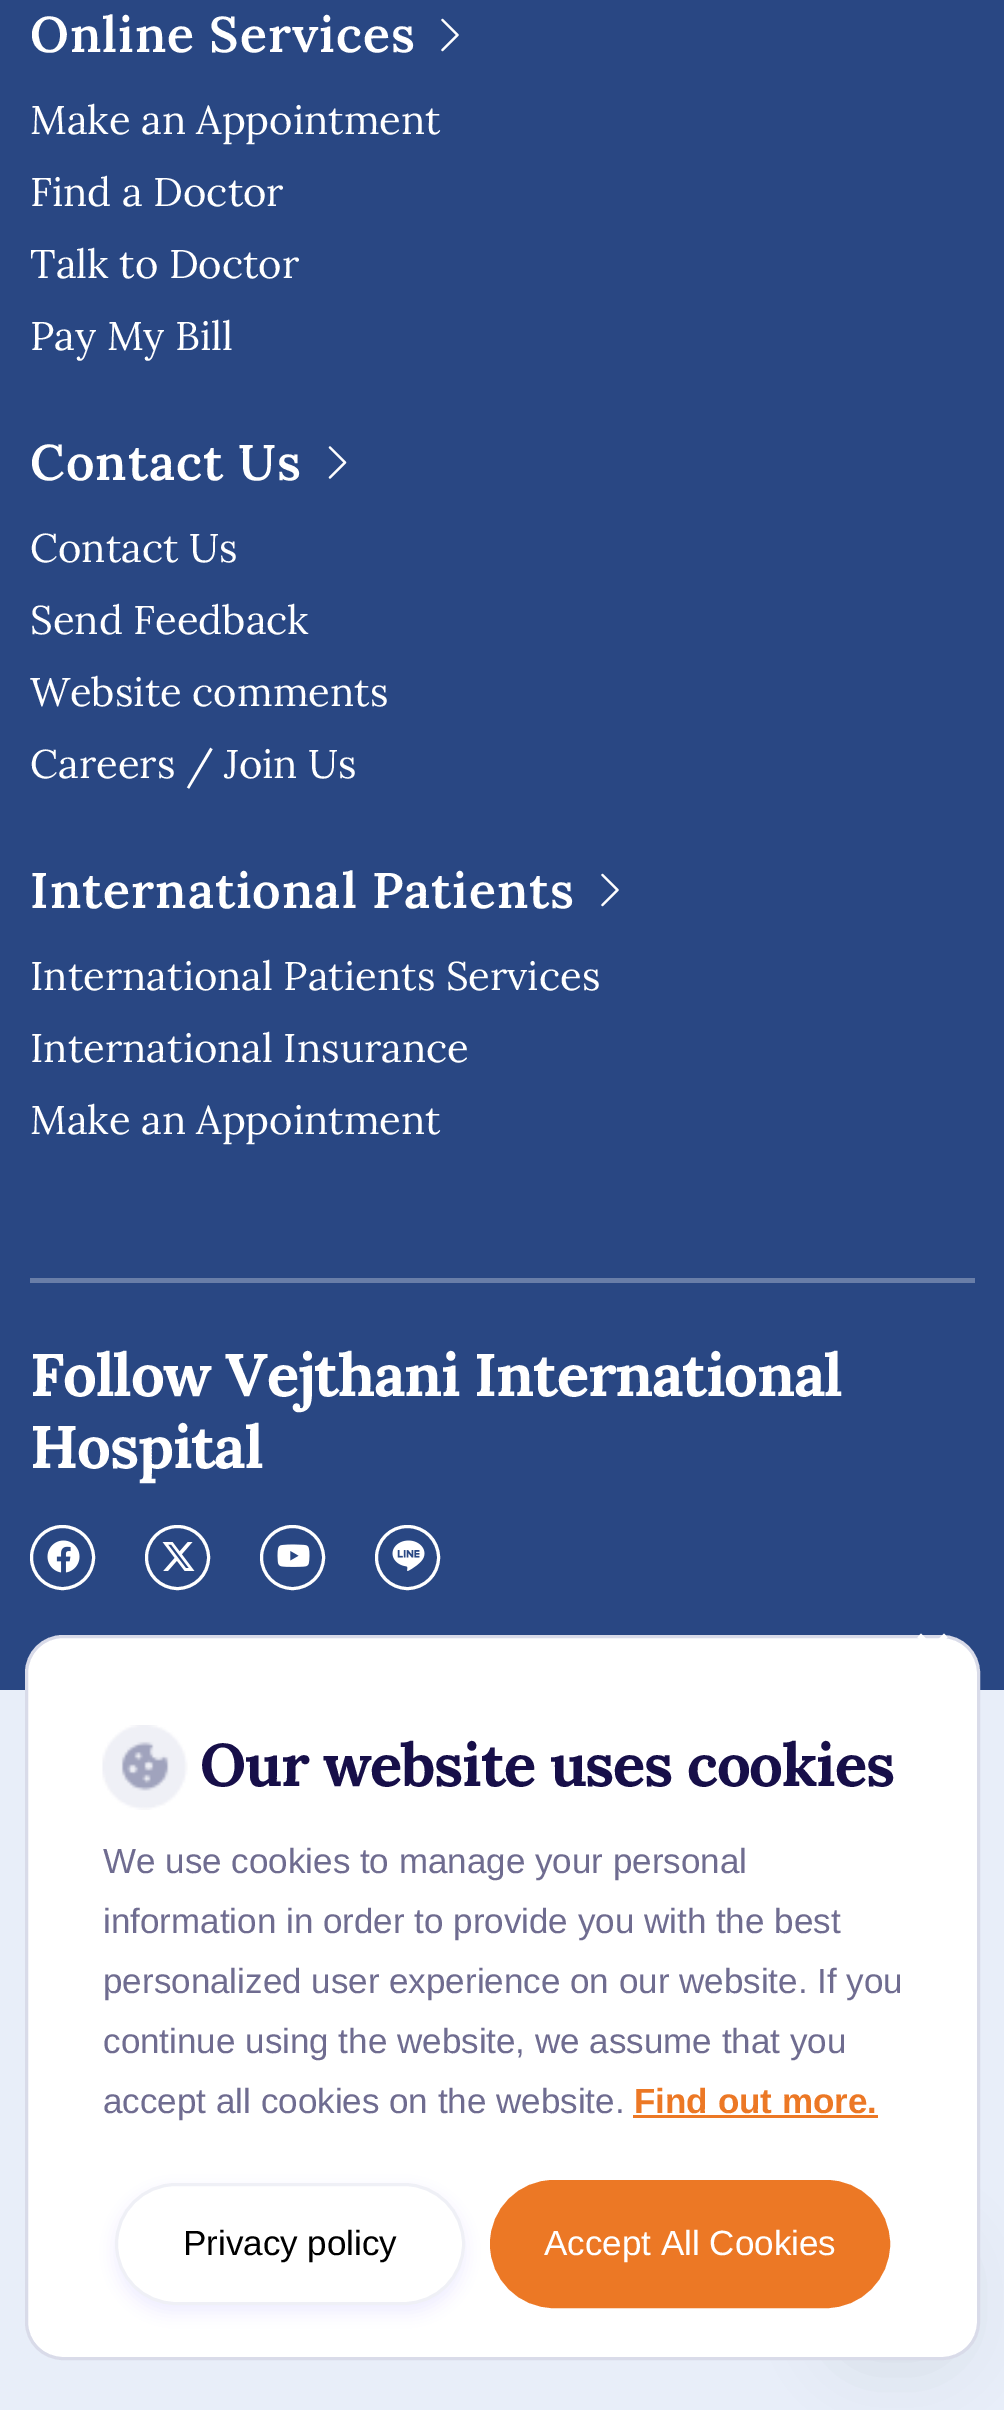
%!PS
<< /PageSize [1004 2410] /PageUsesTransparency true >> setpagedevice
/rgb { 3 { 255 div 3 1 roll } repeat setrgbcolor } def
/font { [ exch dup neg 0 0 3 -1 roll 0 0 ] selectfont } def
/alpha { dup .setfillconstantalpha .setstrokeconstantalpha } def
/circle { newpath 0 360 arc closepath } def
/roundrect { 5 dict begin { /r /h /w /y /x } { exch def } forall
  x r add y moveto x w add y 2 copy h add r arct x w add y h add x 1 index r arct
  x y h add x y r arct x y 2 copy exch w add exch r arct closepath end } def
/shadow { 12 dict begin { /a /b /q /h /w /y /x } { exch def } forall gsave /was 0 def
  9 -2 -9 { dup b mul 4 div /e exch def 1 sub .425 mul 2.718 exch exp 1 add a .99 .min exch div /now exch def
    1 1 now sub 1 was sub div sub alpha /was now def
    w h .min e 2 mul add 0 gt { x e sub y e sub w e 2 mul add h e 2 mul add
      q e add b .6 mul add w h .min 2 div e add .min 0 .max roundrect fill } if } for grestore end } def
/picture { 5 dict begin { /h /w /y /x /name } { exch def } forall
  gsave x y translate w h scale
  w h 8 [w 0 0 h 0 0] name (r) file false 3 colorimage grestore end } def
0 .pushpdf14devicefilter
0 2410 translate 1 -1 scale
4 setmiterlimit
41 71 131 rgb
0 0 1004 2410 rectfill
(img/1.rgb) 441 18 18 34 picture
(img/2.rgb) 328 446 19 33 picture
(img/1.rgb) 601 873 18 34 picture
105 126 168 rgb
30 1278 945 5 rectfill
255 255 255 rgb
3 setlinewidth
62.5 1557.5 31 circle stroke
(img/3.rgb) 47 1540 33 33 picture
177.5 1557.5 31 circle stroke
(img/4.rgb) 162 1542 33 29 picture
292.5 1557.5 31 circle stroke
(img/5.rgb) 277 1544 33 23 picture
407.5 1557.5 31 circle stroke
(img/6.rgb) 392 1540 33 31 picture
232 238 249 rgb
0 1690 1004 720 rectfill
149 157 165 rgb
828 2233 137 137 40 30 0.2 shadow
255 255 255 rgb
26.5 1636.5 952 722 36.5 roundrect gsave fill grestore
217 219 233 rgb
stroke
255 255 255 rgb
944 1633.5 moveto 947.5 1637.5 lineto 921 1664 lineto 917.5 1660 lineto closepath fill
917.5 1637.5 moveto 921 1633.5 lineto 947.5 1660 lineto 944 1664 lineto closepath fill
(img/7.rgb) 102 1725 86 85 picture
236 120 37 rgb
633 2115 245 3 rectfill
74 58 255 rgb
115 2190 350 123 61.5 7 0.08 shadow
255 255 255 rgb
116.5 2184.5 347 119 59.5 roundrect gsave fill grestore
239 240 246 rgb
stroke
236 120 37 rgb
492.5 2182.5 395 123 61.5 roundrect gsave fill grestore
5 setlinewidth
stroke
/Lora-SemiBold 50 font
255 255 255 rgb
30 52 moveto 1 0 (Online Services) ashow
/Lora-Regular 40 font
[
  [(Make an Appointment) 30 134]
  [(Find a Doctor) 30 206]
  [(Talk to Doctor) 30 278]
  [(Pay My Bill) 30 350]
] { aload pop moveto show } forall
/Lora-SemiBold 50 font
30 480 moveto 1 0 (Contact Us) ashow
/Lora-Regular 40 font
[
  [(Contact Us) 30 562]
  [(Send Feedback) 30 634]
  [(Website comments) 30 706]
  [(Careers / Join Us) 30 778]
] { aload pop moveto show } forall
/Lora-SemiBold 50 font
30 908 moveto 1 0 (International Patients) ashow
/Lora-Regular 40 font
[
  [(International Patients Services) 30 990]
  [(International Insurance) 30 1062]
  [(Make an Appointment) 30 1134]
] { aload pop moveto show } forall
/Lora-Bold 60 font
30 1396 moveto -1.25 0 (Follow Vejthani International) ashow
30 1468 moveto -1.25 0 (Hospital) ashow
23 15 73 rgb
200 1786 moveto -1.25 0 (Our website uses cookies) ashow
/LiberationSans-Regular 35 font
111 108 144 rgb
[
  [(We use cookies to manage your personal) 103 1873]
  [(information in order to provide you with the best) 103 1933]
  [(personalized user experience on our website. If you) 103 1993]
  [(continue using the website, we assume that you) 103 2053]
  [(accept all cookies on the website.) 103 2113]
] { aload pop moveto show } forall
/LiberationSans-Bold 35 font
236 120 37 rgb
634 2113 moveto (Find out more.) show
/LiberationSans-Regular 35 font
0 0 0 rgb
183 2255 moveto (Privacy policy) show
255 255 255 rgb
544 2255 moveto (Accept All Cookies) show
.poppdf14devicefilter showpage
